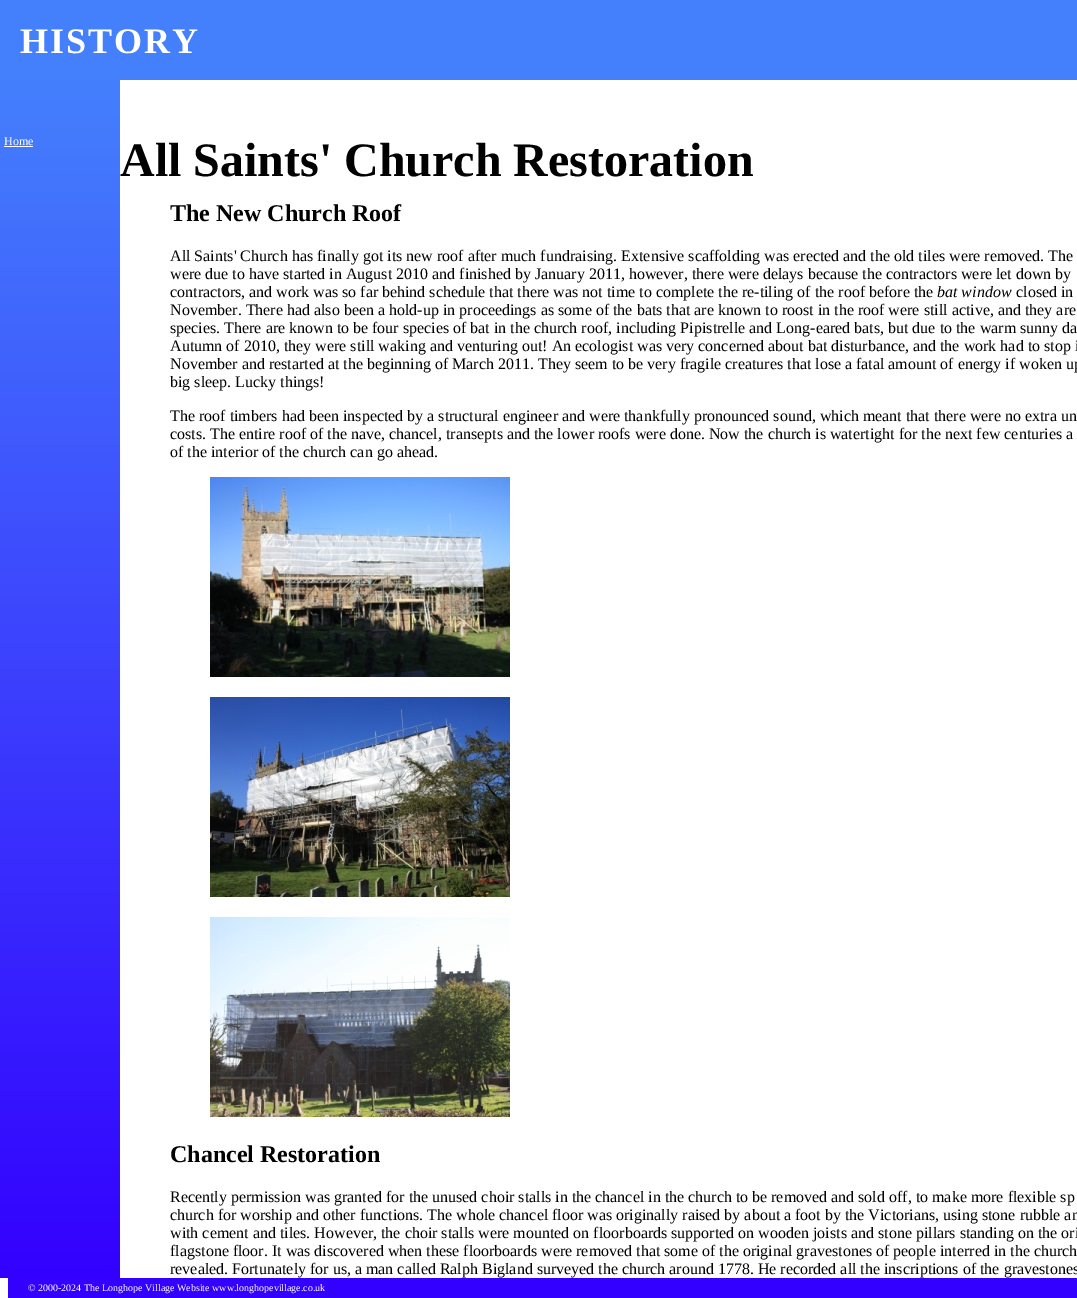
%!PS
<< /PageSize [1077 1298] >> setpagedevice
/rgb { 3 { 255 div 3 1 roll } repeat setrgbcolor } def
/font { [ exch dup neg 0 0 3 -1 roll 0 0 ] selectfont } def
/picture { 5 dict begin { /h /w /y /x /name } { exch def } forall
  gsave x y translate w h scale
  w h 8 [w 0 0 h 0 0] name (r) file false 3 colorimage grestore end } def
0 1298 translate 1 -1 scale
4 setmiterlimit
255 255 255 rgb
0 0 1077 1298 rectfill
68 128 252 rgb
0 0 1077 80 rectfill
gsave 0 80 moveto 120 80 lineto 120 1278 lineto 0 1278 lineto closepath clip newpath
<< /ShadingType 2 /ColorSpace /DeviceRGB /Coords [60 80 60 1278] /Extend [true true] /Function << /FunctionType 2 /Domain [0 1] /C0 [0.267 0.502 0.988] /C1 [0.2 0 1] /N 1 >> >> shfill grestore
255 255 255 rgb
4 146 29 1 rectfill
(img/1.rgb) 210 477 300 200 picture
(img/2.rgb) 210 697 300 200 picture
(img/3.rgb) 210 917 300 200 picture
51 0 255 rgb
8 1278 1069 20 rectfill
/LiberationSerif-Bold 36 font
255 255 255 rgb
20 53 moveto 2 0 (HISTORY) ashow
/LiberationSerif-Regular 12 font
4 145 moveto (Home) show
/LiberationSerif-Bold 48 font
0 0 0 rgb
120 176 moveto (All Saints' Church Restoration) show
/LiberationSerif-Bold 24 font
170 221 moveto (The New Church Roof) show
/LiberationSerif-Regular 16 font
[
  [(All Saints' Church has finally got its new roof after much fundraising. Extensive scaffolding was erected and the old tiles were removed. The) 170 261]
  [(were due to have started in August 2010 and finished by January 2011, however, there were delays because the contractors were let down by) 170 279]
  [(contractors, and work was so far behind schedule that there was not time to complete the re-tiling of the roof before the) 170 297]
] { aload pop moveto show } forall
/LiberationSerif-Italic 16 font
937 297 moveto (bat window) show
/LiberationSerif-Regular 16 font
[
  [(closed in) 1016 297]
  [(November. There had also been a hold-up in proceedings as some of the bats that are known to roost in the roof were still active, and they are) 170 315]
  [(species. There are known to be four species of bat in the church roof, including Pipistrelle and Long-eared bats, but due to the warm sunny da) 170 333]
  [(Autumn of 2010, they were still waking and venturing out! An ecologist was very concerned about bat disturbance, and the work had to stop i) 170 351]
  [(November and restarted at the beginning of March 2011. They seem to be very fragile creatures that lose a fatal amount of energy if woken up) 170 369]
  [(big sleep. Lucky things!) 170 387]
  [(The roof timbers had been inspected by a structural engineer and were thankfully pronounced sound, which meant that there were no extra un) 170 421]
  [(costs. The entire roof of the nave, chancel, transepts and the lower roofs were done. Now the church is watertight for the next few centuries a) 170 439]
  [(of the interior of the church can go ahead.) 170 457]
] { aload pop moveto show } forall
/LiberationSerif-Bold 24 font
170 1162 moveto (Chancel Restoration) show
/LiberationSerif-Regular 16 font
[
  [(Recently permission was granted for the unused choir stalls in the chancel in the church to be removed and sold off, to make more flexible sp) 170 1202]
  [(church for worship and other functions. The whole chancel floor was originally raised by about a foot by the Victorians, using stone rubble an) 170 1220]
  [(with cement and tiles. However, the choir stalls were mounted on floorboards supported on wooden joists and stone pillars standing on the ori) 170 1238]
  [(flagstone floor. It was discovered when these floorboards were removed that some of the original gravestones of people interred in the church) 170 1256]
  [(revealed. Fortunately for us, a man called Ralph Bigland surveyed the church around 1778. He recorded all the inscriptions of the gravestones) 170 1274]
] { aload pop moveto show } forall
/LiberationSerif-Regular 10 font
255 255 255 rgb
28 1291 moveto (© 2000-2024 The Longhope Village Website www.longhopevillage.co.uk) show
showpage
